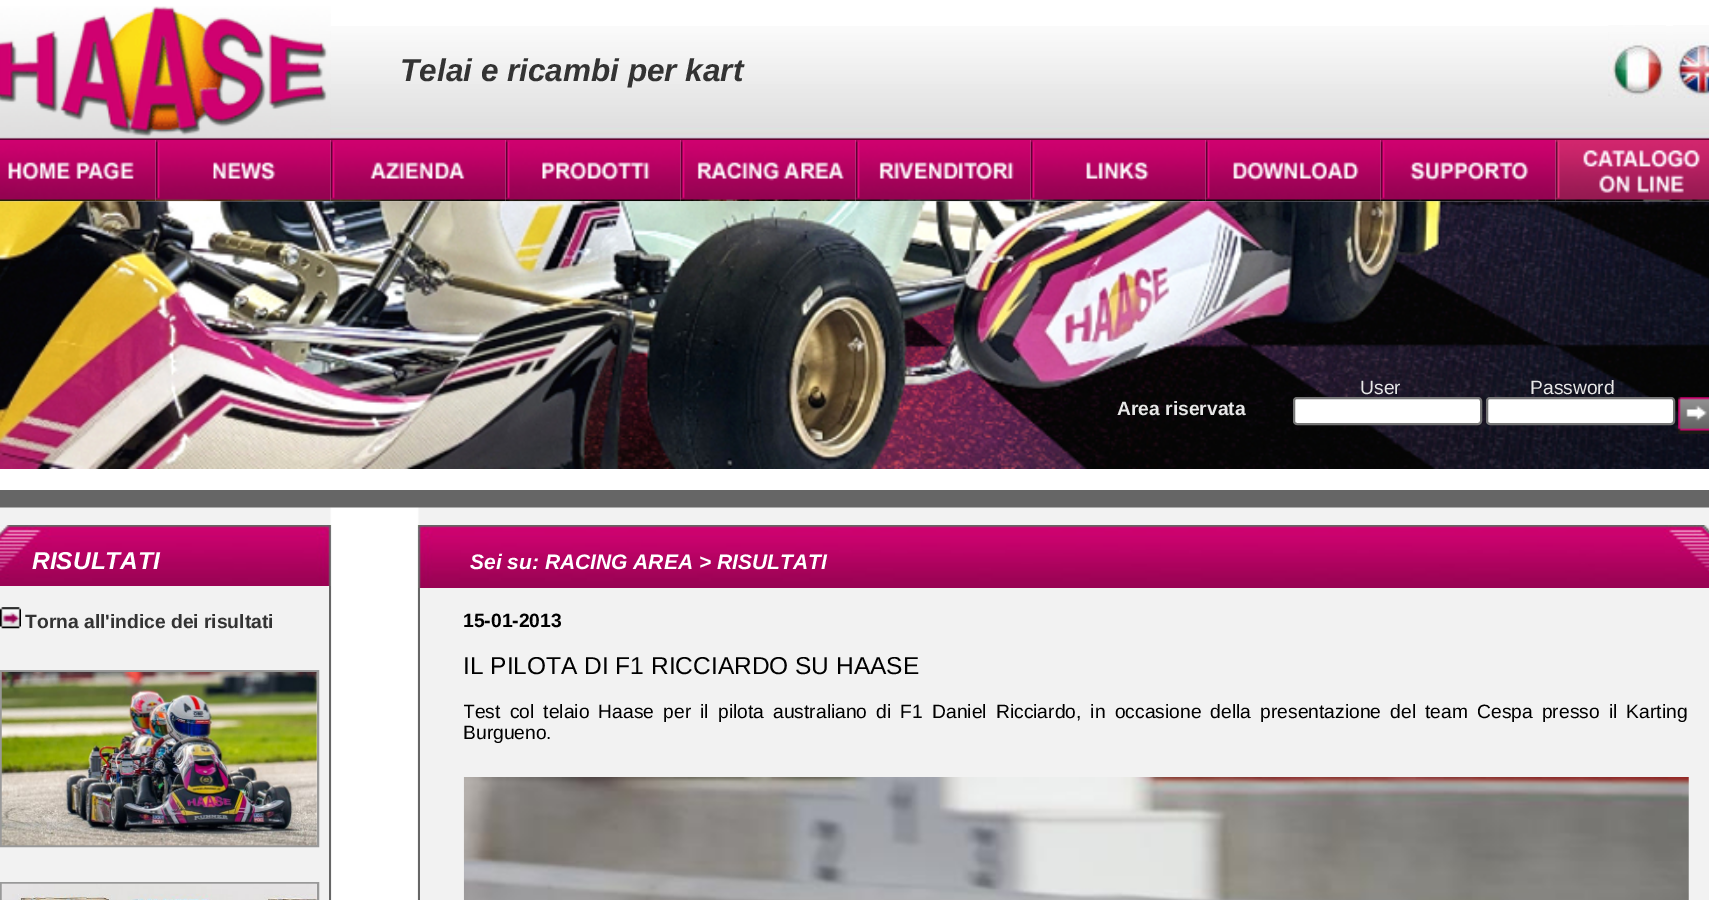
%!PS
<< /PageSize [1709 900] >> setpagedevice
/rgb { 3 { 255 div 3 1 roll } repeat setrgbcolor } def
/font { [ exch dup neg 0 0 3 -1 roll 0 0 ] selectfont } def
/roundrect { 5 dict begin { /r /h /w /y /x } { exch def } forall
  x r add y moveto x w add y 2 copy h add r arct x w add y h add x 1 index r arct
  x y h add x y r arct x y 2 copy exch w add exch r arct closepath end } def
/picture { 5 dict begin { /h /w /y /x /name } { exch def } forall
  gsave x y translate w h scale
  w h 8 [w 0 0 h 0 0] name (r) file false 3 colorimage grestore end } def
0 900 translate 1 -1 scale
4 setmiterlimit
255 255 255 rgb
0 0 1709 900 rectfill
(img/1.rgb) 330 26 1379 114 picture
(img/2.rgb) 0 6 331 134 picture
(img/3.rgb) 1608 25 58 73 picture
(img/4.rgb) 1673 25 36 73 picture
(img/15.rgb) 0 201 1709 268 picture
(img/5.rgb) 0 140 156 62 picture
(img/6.rgb) 155 140 176 62 picture
(img/7.rgb) 330 140 176 62 picture
(img/8.rgb) 505 140 176 62 picture
(img/9.rgb) 680 140 176 62 picture
(img/10.rgb) 855 140 176 62 picture
(img/11.rgb) 1030 140 176 62 picture
(img/12.rgb) 1205 140 176 62 picture
(img/13.rgb) 1380 140 176 62 picture
(img/14.rgb) 1555 140 154 62 picture
1294 398 187 26 3 roundrect gsave fill grestore
118 118 118 rgb
2 setlinewidth
stroke
255 255 255 rgb
1487 398 187 26 3 roundrect gsave fill grestore
118 118 118 rgb
stroke
(img/16.rgb) 1678 397 31 37 picture
102 102 102 rgb
0 490 1709 18 rectfill
(img/17.rgb) 0 507 1709 18 picture
(img/18.rgb) 330 525 89 375 picture
(img/19.rgb) 0 525 331 61 picture
242 242 242 rgb
0 586 329 314 rectfill
102 102 102 rgb
329 586 2 314 rectfill
(img/20.rgb) 0 607 21 22 picture
153 153 153 rgb
1 671 317 175 rectstroke
(img/21.rgb) 1 672 316 174 picture
1 883 317 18 rectstroke
(img/22.rgb) 1 883 316 17 picture
(img/23.rgb) 418 525 1291 63 picture
242 242 242 rgb
420 588 1289 312 rectfill
102 102 102 rgb
418 588 2 312 rectfill
(img/24.rgb) 463 777 1226 123 picture
/LiberationSans-BoldItalic 31.5 font
51 51 51 rgb
400 81 moveto (Telai e ricambi per kart) show
/LiberationSans-Regular 19.25 font
231 231 231 rgb
1360 394 moveto (User) show
1530 394 moveto (Password) show
/LiberationSans-Bold 19.25 font
1117 415 moveto (Area riservata) show
/LiberationSans-BoldItalic 24.5 font
255 255 255 rgb
32 569 moveto (RISULTATI) show
/LiberationSans-Bold 19.25 font
51 51 51 rgb
25 628 moveto (Torna all'indice dei risultati) show
/LiberationSans-BoldItalic 21 font
255 255 255 rgb
470 569 moveto (Sei su: RACING AREA > RISULTATI) show
/LiberationSans-Bold 19.25 font
0 0 0 rgb
463 627 moveto (15-01-2013) show
/LiberationSans-Regular 24.5 font
463 674 moveto (IL PILOTA DI F1 RICCIARDO SU HAASE) show
gsave
464 609 1225 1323 rectclip
/LiberationSans-Regular 19.25 font
463 718 moveto 3.8 0 32 (Test col telaio Haase per il pilota australiano di F1 Daniel Ricciardo, in occasione della presentazione del team Cespa presso il Karting) widthshow
grestore
/LiberationSans-Regular 19.25 font
463 739 moveto (Burgueno.) show
showpage
